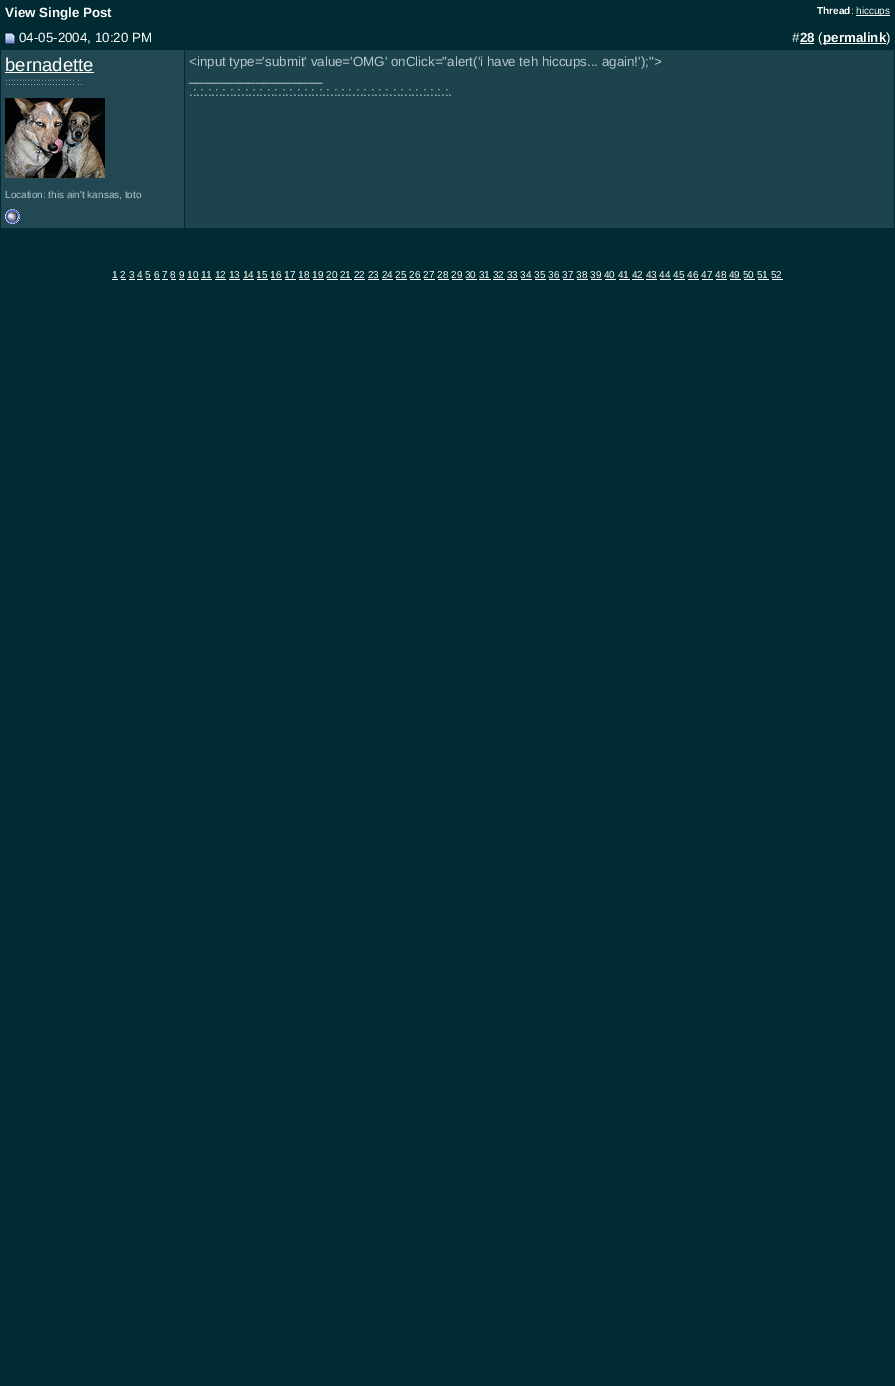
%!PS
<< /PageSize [895 1386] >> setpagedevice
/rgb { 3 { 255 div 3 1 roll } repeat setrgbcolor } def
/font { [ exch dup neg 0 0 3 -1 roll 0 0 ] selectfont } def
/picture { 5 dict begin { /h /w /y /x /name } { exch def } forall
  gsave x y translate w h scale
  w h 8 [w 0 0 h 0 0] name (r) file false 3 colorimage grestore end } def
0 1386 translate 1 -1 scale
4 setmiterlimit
0 43 51 rgb
0 0 895 1386 rectfill
255 255 255 rgb
856 15 34 1 rectfill
(img/1.rgb) 5 33 10 11 picture
[
  [800 43 14 1 255 255 255]
  [823 43 63 1 255 255 255]
  [1 50 183 178 34 73 83]
  [5 72 89 1 255 255 255]
] { aload pop rgb rectfill } forall
(img/2.rgb) 5 98 100 80 picture
29 68 77 rgb
185 50 709 178 rectfill
(img/3.rgb) 5 209 15 15 picture
[
  [112 279 6 1 255 255 255]
  [121 279 5 1 255 255 255]
  [129 279 6 1 255 255 255]
  [137 279 6 1 255 255 255]
  [146 279 5 1 255 255 255]
  [154 279 6 1 255 255 255]
  [162 279 6 1 255 255 255]
  [171 279 5 1 255 255 255]
  [179 279 6 1 255 255 255]
  [187 279 12 1 255 255 255]
  [201 279 11 1 255 255 255]
  [215 279 11 1 255 255 255]
  [229 279 11 1 255 255 255]
  [243 279 11 1 255 255 255]
  [257 279 11 1 255 255 255]
  [271 279 11 1 255 255 255]
  [285 279 11 1 255 255 255]
  [299 279 11 1 255 255 255]
  [313 279 11 1 255 255 255]
  [327 279 11 1 255 255 255]
  [340 279 12 1 255 255 255]
  [354 279 11 1 255 255 255]
  [368 279 11 1 255 255 255]
  [382 279 11 1 255 255 255]
  [396 279 11 1 255 255 255]
  [410 279 11 1 255 255 255]
  [424 279 11 1 255 255 255]
  [438 279 11 1 255 255 255]
  [452 279 11 1 255 255 255]
  [466 279 11 1 255 255 255]
  [479 279 12 1 255 255 255]
  [493 279 12 1 255 255 255]
  [507 279 11 1 255 255 255]
  [521 279 11 1 255 255 255]
  [535 279 11 1 255 255 255]
  [549 279 11 1 255 255 255]
  [563 279 11 1 255 255 255]
  [577 279 11 1 255 255 255]
  [591 279 11 1 255 255 255]
  [605 279 11 1 255 255 255]
  [619 279 11 1 255 255 255]
  [632 279 12 1 255 255 255]
  [646 279 11 1 255 255 255]
  [660 279 11 1 255 255 255]
  [674 279 11 1 255 255 255]
  [688 279 11 1 255 255 255]
  [702 279 11 1 255 255 255]
  [716 279 11 1 255 255 255]
  [730 279 11 1 255 255 255]
  [744 279 11 1 255 255 255]
  [758 279 11 1 255 255 255]
  [772 279 11 1 255 255 255]
] { aload pop rgb rectfill } forall
/LiberationSans-Bold 13.35 font
5 17 moveto (View Single Post) show
/LiberationSans-Bold 10 font
817 14 moveto (Thread) show
/LiberationSans-Regular 10 font
851 14 moveto (:) show
856 14 moveto (hiccups) show
/LiberationSans-Regular 13.35 font
19 42 moveto (04-05-2004, 10:20 PM) show
792 42 moveto (#) show
/LiberationSans-Bold 13.35 font
800 42 moveto (28) show
/LiberationSans-Regular 13.35 font
818 42 moveto (\() show
/LiberationSans-Bold 13.35 font
823 42 moveto (permalink) show
/LiberationSans-Regular 13.35 font
886 42 moveto (\)) show
/LiberationSans-Regular 18.5 font
5 71 moveto (bernadette) show
/LiberationSans-Regular 10 font
184 198 205 rgb
5 85 moveto (::::::::::::::::::::::::: :.) show
5 198 moveto (Location: this ain't kansas, toto) show
/LiberationSans-Regular 13.35 font
[
  [(<input type='submit' value='OMG' onClick="alert\('i have teh hiccups... again!'\);">) 189 66]
  [(__________________) 189 81]
  [(.:.:.:.:.:.:.:.:.:.:.:.:.:.:.:.:.:.:.:.:.:.:.:.:.:.:.:.:.:.:.:.:.:.:.:.) 189 96]
] { aload pop moveto show } forall
/LiberationSans-Regular 10 font
255 255 255 rgb
112 278 moveto (1 2 3 4 5 6 7 8 9 10 11 12 13 14 15 16 17 18 19 20 21 22 23 24 25 26 27 28 29 30 31 32 33 34 35 36 37 38 39 40 41 42 43 44 45 46 47 48 49 50 51 52) show
showpage
